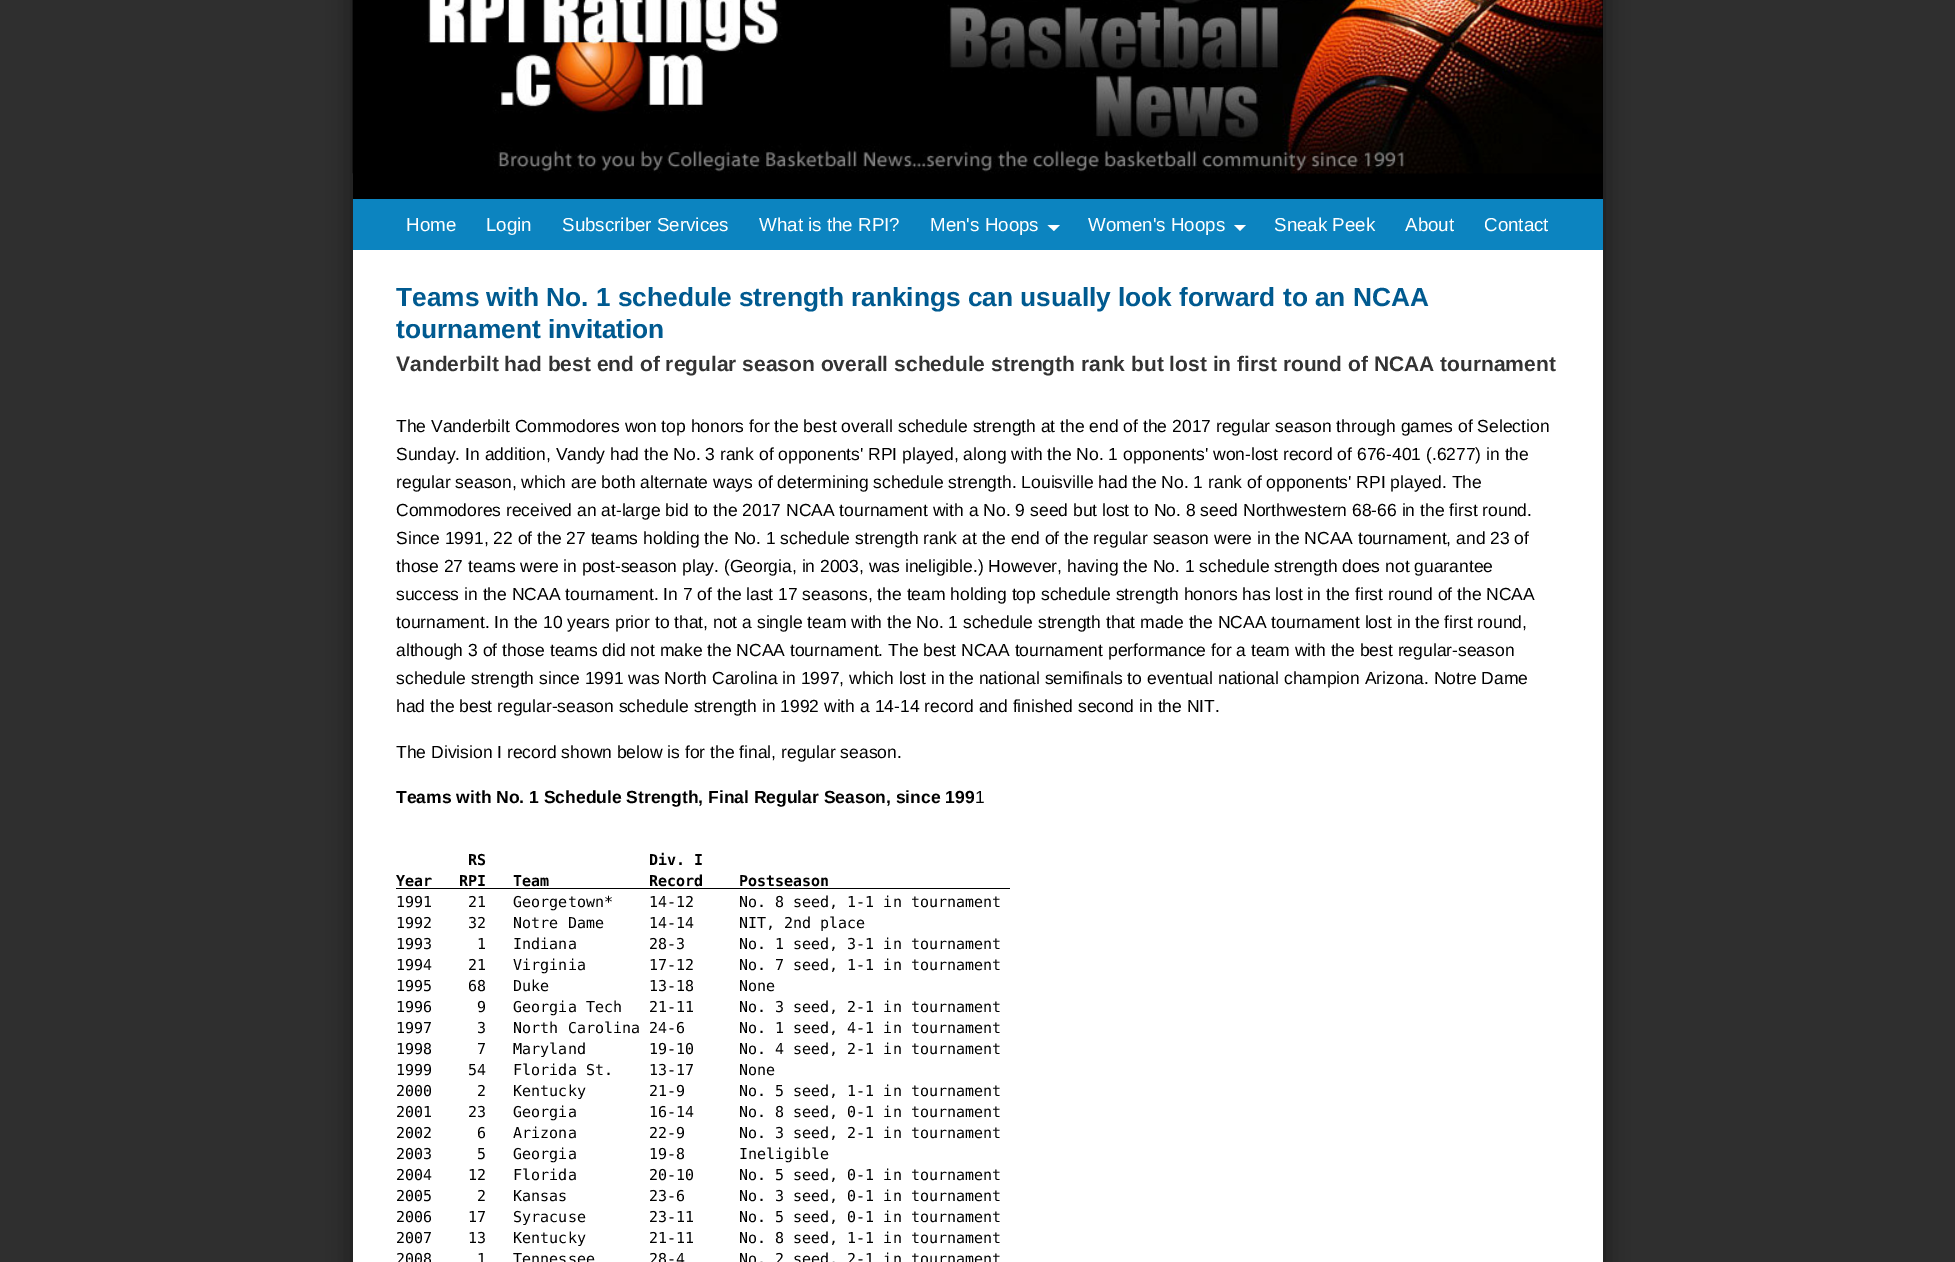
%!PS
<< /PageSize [1955 1262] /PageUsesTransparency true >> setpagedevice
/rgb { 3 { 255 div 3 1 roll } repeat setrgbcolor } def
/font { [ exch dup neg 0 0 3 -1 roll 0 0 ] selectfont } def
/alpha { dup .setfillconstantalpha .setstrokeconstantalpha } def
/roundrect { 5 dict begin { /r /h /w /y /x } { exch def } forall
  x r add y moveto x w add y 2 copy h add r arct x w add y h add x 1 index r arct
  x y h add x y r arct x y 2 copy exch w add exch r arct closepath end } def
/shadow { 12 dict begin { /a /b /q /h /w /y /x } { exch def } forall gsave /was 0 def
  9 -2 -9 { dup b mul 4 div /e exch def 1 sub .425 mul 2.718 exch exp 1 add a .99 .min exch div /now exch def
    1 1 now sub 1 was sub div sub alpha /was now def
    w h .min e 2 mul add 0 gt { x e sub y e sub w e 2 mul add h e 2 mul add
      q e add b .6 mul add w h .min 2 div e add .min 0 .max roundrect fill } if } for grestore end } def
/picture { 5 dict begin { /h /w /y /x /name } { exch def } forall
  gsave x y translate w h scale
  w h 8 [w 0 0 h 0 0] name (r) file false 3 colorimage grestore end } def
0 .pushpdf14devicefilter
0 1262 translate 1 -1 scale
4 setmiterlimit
47 47 47 rgb
0 0 1955 1262 rectfill
0 0 0 rgb
353 -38 1250 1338 0 12.5 0.5 shadow
255 255 255 rgb
353 250 1250 1012 rectfill
0 0 0 rgb
353 0 1250 199 rectfill
(img/1.rgb) 352 0 1251 174 picture
12 132 192 rgb
353 199 1250 51 rectfill
255 255 255 rgb
1047.5 225 moveto 1060 225 lineto 1054 231 lineto closepath fill
1234 225 moveto 1246 225 lineto 1240 231 lineto closepath fill
0 0 0 rgb
396 888 614 1 rectfill
/LiberationSans-Regular 18.75 font
255 255 255 rgb
[
  [(Home) 406 231]
  [(Login) 486 231]
  [(Subscriber Services) 562 231]
  [(What is the RPI?) 759 231]
  [(Men's Hoops) 930 231]
  [(Women's Hoops) 1088 231]
  [(Sneak Peek) 1274 231]
  [(About) 1405 231]
  [(Contact) 1484 231]
] { aload pop moveto show } forall
/LiberationSans-Bold 26.25 font
0 90 144 rgb
396 306 moveto (Teams with No. 1 schedule strength rankings can usually look forward to an NCAA) show
396 338 moveto (tournament invitation) show
/LiberationSans-Bold 21 font
51 51 51 rgb
396 371 moveto (Vanderbilt had best end of regular season overall schedule strength rank but lost in first round of NCAA tournament) show
/LiberationSans-Regular 17.5 font
0 0 0 rgb
[
  [(The Vanderbilt Commodores won top honors for the best overall schedule strength at the end of the 2017 regular season through games of Selection) 396 432]
  [(Sunday. In addition, Vandy had the No. 3 rank of opponents' RPI played, along with the No. 1 opponents' won-lost record of 676-401 \(.6277\) in the) 396 460]
  [(regular season, which are both alternate ways of determining schedule strength. Louisville had the No. 1 rank of opponents' RPI played. The) 396 488]
  [(Commodores received an at-large bid to the 2017 NCAA tournament with a No. 9 seed but lost to No. 8 seed Northwestern 68-66 in the first round.) 396 516]
  [(Since 1991, 22 of the 27 teams holding the No. 1 schedule strength rank at the end of the regular season were in the NCAA tournament, and 23 of) 396 544]
  [(those 27 teams were in post-season play. \(Georgia, in 2003, was ineligible.\) However, having the No. 1 schedule strength does not guarantee) 396 572]
  [(success in the NCAA tournament. In 7 of the last 17 seasons, the team holding top schedule strength honors has lost in the first round of the NCAA) 396 600]
  [(tournament. In the 10 years prior to that, not a single team with the No. 1 schedule strength that made the NCAA tournament lost in the first round,) 396 628]
  [(although 3 of those teams did not make the NCAA tournament. The best NCAA tournament performance for a team with the best regular-season) 396 656]
  [(schedule strength since 1991 was North Carolina in 1997, which lost in the national semifinals to eventual national champion Arizona. Notre Dame) 396 684]
  [(had the best regular-season schedule strength in 1992 with a 14-14 record and finished second in the NIT.) 396 712]
  [(The Division I record shown below is for the final, regular season.) 396 758]
] { aload pop moveto show } forall
/LiberationSans-Bold 17.5 font
396 803 moveto (Teams with No. 1 Schedule Strength, Final Regular Season, since 199) show
/LiberationSans-Regular 17.5 font
975 803 moveto (1) show
/DejaVuSansMono-Bold 15 font
468 865 moveto (RS                  Div. I) show
396 886 moveto (Year   RPI   Team           Record    Postseason) show
/DejaVuSansMono-Regular 15 font
[
  [(1991    21   Georgetown*    14-12     No. 8 seed, 1-1 in tournament) 396 907]
  [(1992    32   Notre Dame     14-14     NIT, 2nd place) 396 928]
  [(1993     1   Indiana        28-3      No. 1 seed, 3-1 in tournament) 396 949]
  [(1994    21   Virginia       17-12     No. 7 seed, 1-1 in tournament) 396 970]
  [(1995    68   Duke           13-18     None) 396 991]
  [(1996     9   Georgia Tech   21-11     No. 3 seed, 2-1 in tournament) 396 1012]
  [(1997     3   North Carolina 24-6      No. 1 seed, 4-1 in tournament) 396 1033]
  [(1998     7   Maryland       19-10     No. 4 seed, 2-1 in tournament) 396 1054]
  [(1999    54   Florida St.    13-17     None) 396 1075]
  [(2000     2   Kentucky       21-9      No. 5 seed, 1-1 in tournament) 396 1096]
  [(2001    23   Georgia        16-14     No. 8 seed, 0-1 in tournament) 396 1117]
  [(2002     6   Arizona        22-9      No. 3 seed, 2-1 in tournament) 396 1138]
  [(2003     5   Georgia        19-8      Ineligible) 396 1159]
  [(2004    12   Florida        20-10     No. 5 seed, 0-1 in tournament) 396 1180]
  [(2005     2   Kansas         23-6      No. 3 seed, 0-1 in tournament) 396 1201]
  [(2006    17   Syracuse       23-11     No. 5 seed, 0-1 in tournament) 396 1222]
  [(2007    13   Kentucky       21-11     No. 8 seed, 1-1 in tournament) 396 1243]
  [(2008     1   Tennessee      28-4      No. 2 seed, 2-1 in tournament) 396 1264]
] { aload pop moveto show } forall
.poppdf14devicefilter showpage
